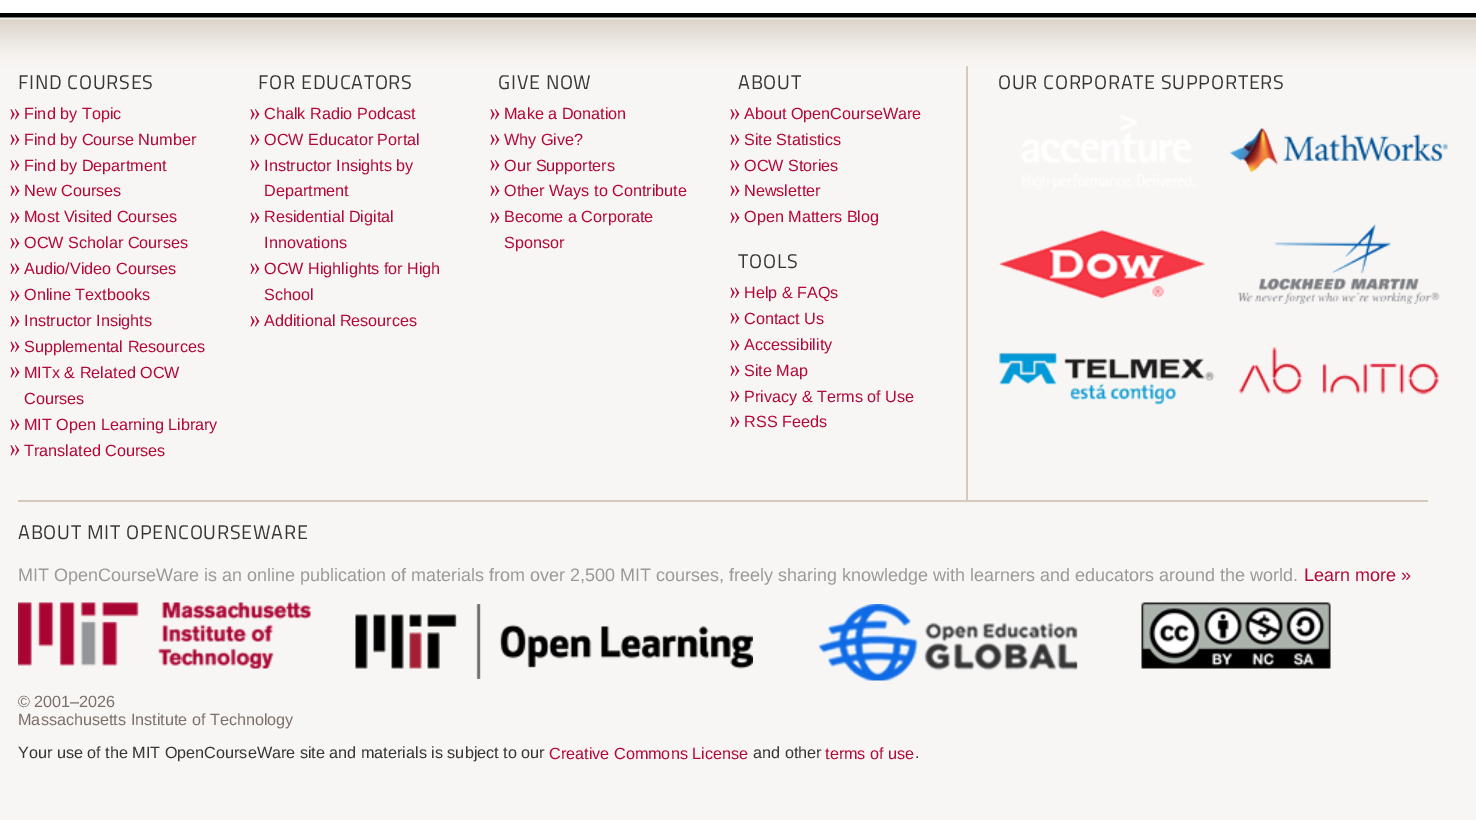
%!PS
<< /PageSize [1476 820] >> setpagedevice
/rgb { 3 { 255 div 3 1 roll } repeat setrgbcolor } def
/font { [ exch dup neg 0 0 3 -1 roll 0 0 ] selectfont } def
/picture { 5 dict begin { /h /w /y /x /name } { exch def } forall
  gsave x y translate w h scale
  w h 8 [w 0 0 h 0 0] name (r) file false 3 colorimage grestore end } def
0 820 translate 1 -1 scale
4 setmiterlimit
255 255 255 rgb
0 0 1476 820 rectfill
(img/1.rgb) 0 13 1476 807 picture
(img/2.rgb) 10 109 10 11 picture
(img/3.rgb) 10 134 10 11 picture
(img/2.rgb) 10 160 10 11 picture
(img/3.rgb) 10 185 10 11 picture
(img/3.rgb) 10 212 10 11 picture
(img/2.rgb) 10 238 10 11 picture
(img/3.rgb) 10 263 10 11 picture
(img/3.rgb) 10 290 10 11 picture
(img/2.rgb) 10 316 10 11 picture
(img/3.rgb) 10 341 10 11 picture
(img/2.rgb) 10 367 10 11 picture
(img/3.rgb) 10 419 10 11 picture
(img/2.rgb) 10 445 10 11 picture
(img/2.rgb) 250 109 10 11 picture
(img/3.rgb) 250 134 10 11 picture
(img/2.rgb) 250 160 10 11 picture
(img/3.rgb) 250 212 10 11 picture
(img/3.rgb) 250 263 10 11 picture
(img/2.rgb) 250 316 10 11 picture
(img/2.rgb) 490 109 10 11 picture
(img/3.rgb) 490 134 10 11 picture
(img/2.rgb) 490 160 10 11 picture
(img/3.rgb) 490 185 10 11 picture
(img/3.rgb) 490 212 10 11 picture
(img/2.rgb) 730 109 10 11 picture
(img/3.rgb) 730 134 10 11 picture
(img/2.rgb) 730 160 10 11 picture
(img/3.rgb) 730 185 10 11 picture
(img/3.rgb) 730 212 10 11 picture
(img/3.rgb) 730 287 10 11 picture
(img/2.rgb) 730 313 10 11 picture
(img/2.rgb) 730 340 10 11 picture
(img/3.rgb) 730 365 10 11 picture
(img/2.rgb) 730 391 10 11 picture
(img/3.rgb) 730 416 10 11 picture
213 201 186 rgb
966 66 2 434 rectfill
(img/4.rgb) 1021 115 174 75 picture
(img/5.rgb) 1230 128 218 45 picture
(img/6.rgb) 998 229 209 71 picture
(img/7.rgb) 1238 224 202 80 picture
(img/8.rgb) 998 352 217 54 picture
(img/9.rgb) 1238 347 201 48 picture
18 500 1410 2 rectfill
(img/10.rgb) 18 602 293 67 picture
(img/11.rgb) 355 604 398 75 picture
(img/12.rgb) 818 604 260 77 picture
(img/13.rgb) 1141 602 190 67 picture
/TitilliumWeb-Regular 19.75 font
54 54 54 rgb
18 89 moveto 0.75 0 (FIND COURSES) ashow
/LiberationSans-Regular 16.2 font
179 8 56 rgb
[
  [(Find by Topic) 24 119]
  [(Find by Course Number) 24 145]
  [(Find by Department) 24 171]
  [(New Courses) 24 196]
  [(Most Visited Courses) 24 222]
  [(OCW Scholar Courses) 24 248]
  [(Audio/Video Courses) 24 274]
  [(Online Textbooks) 24 300]
  [(Instructor Insights) 24 326]
  [(Supplemental Resources) 24 352]
  [(MITx & Related OCW) 24 378]
  [(Courses) 24 404]
  [(MIT Open Learning Library) 24 430]
  [(Translated Courses) 24 456]
] { aload pop moveto show } forall
/TitilliumWeb-Regular 19.75 font
54 54 54 rgb
258 89 moveto 0.75 0 (FOR EDUCATORS) ashow
/LiberationSans-Regular 16.2 font
179 8 56 rgb
[
  [(Chalk Radio Podcast) 264 119]
  [(OCW Educator Portal) 264 145]
  [(Instructor Insights by) 264 171]
  [(Department) 264 196]
  [(Residential Digital) 264 222]
  [(Innovations) 264 248]
  [(OCW Highlights for High) 264 274]
  [(School) 264 300]
  [(Additional Resources) 264 326]
] { aload pop moveto show } forall
/TitilliumWeb-Regular 19.75 font
54 54 54 rgb
498 89 moveto 0.75 0 (GIVE NOW) ashow
/LiberationSans-Regular 16.2 font
179 8 56 rgb
[
  [(Make a Donation) 504 119]
  [(Why Give?) 504 145]
  [(Our Supporters) 504 171]
  [(Other Ways to Contribute) 504 196]
  [(Become a Corporate) 504 222]
  [(Sponsor) 504 248]
] { aload pop moveto show } forall
/TitilliumWeb-Regular 19.75 font
54 54 54 rgb
738 89 moveto 0.75 0 (ABOUT) ashow
/LiberationSans-Regular 16.2 font
179 8 56 rgb
[
  [(About OpenCourseWare) 744 119]
  [(Site Statistics) 744 145]
  [(OCW Stories) 744 171]
  [(Newsletter) 744 196]
  [(Open Matters Blog) 744 222]
] { aload pop moveto show } forall
/TitilliumWeb-Regular 19.75 font
54 54 54 rgb
738 268 moveto 0.75 0 (TOOLS) ashow
/LiberationSans-Regular 16.2 font
179 8 56 rgb
[
  [(Help & FAQs) 744 298]
  [(Contact Us) 744 324]
  [(Accessibility) 744 350]
  [(Site Map) 744 376]
  [(Privacy & Terms of Use) 744 402]
  [(RSS Feeds) 744 427]
] { aload pop moveto show } forall
/TitilliumWeb-Regular 19.75 font
54 54 54 rgb
998 89 moveto 0.75 0 (OUR CORPORATE SUPPORTERS) ashow
18 539 moveto 0.75 0 (ABOUT MIT OPENCOURSEWARE) ashow
/LiberationSans-Regular 18 font
153 153 153 rgb
18 581 moveto (MIT OpenCourseWare is an online publication of materials from over 2,500 MIT courses, freely sharing knowledge with learners and educators around the world.) show
179 8 56 rgb
1304 581 moveto (Learn more ») show
/LiberationSans-Regular 16.2 font
123 112 107 rgb
18 707 moveto (© 2001–2026) show
18 725 moveto (Massachusetts Institute of Technology) show
54 54 54 rgb
18 758 moveto (Your use of the MIT OpenCourseWare site and materials is subject to our) show
179 8 56 rgb
549 759 moveto (Creative Commons License) show
54 54 54 rgb
753 758 moveto (and other) show
179 8 56 rgb
825 759 moveto (terms of use) show
54 54 54 rgb
915 758 moveto (.) show
showpage
